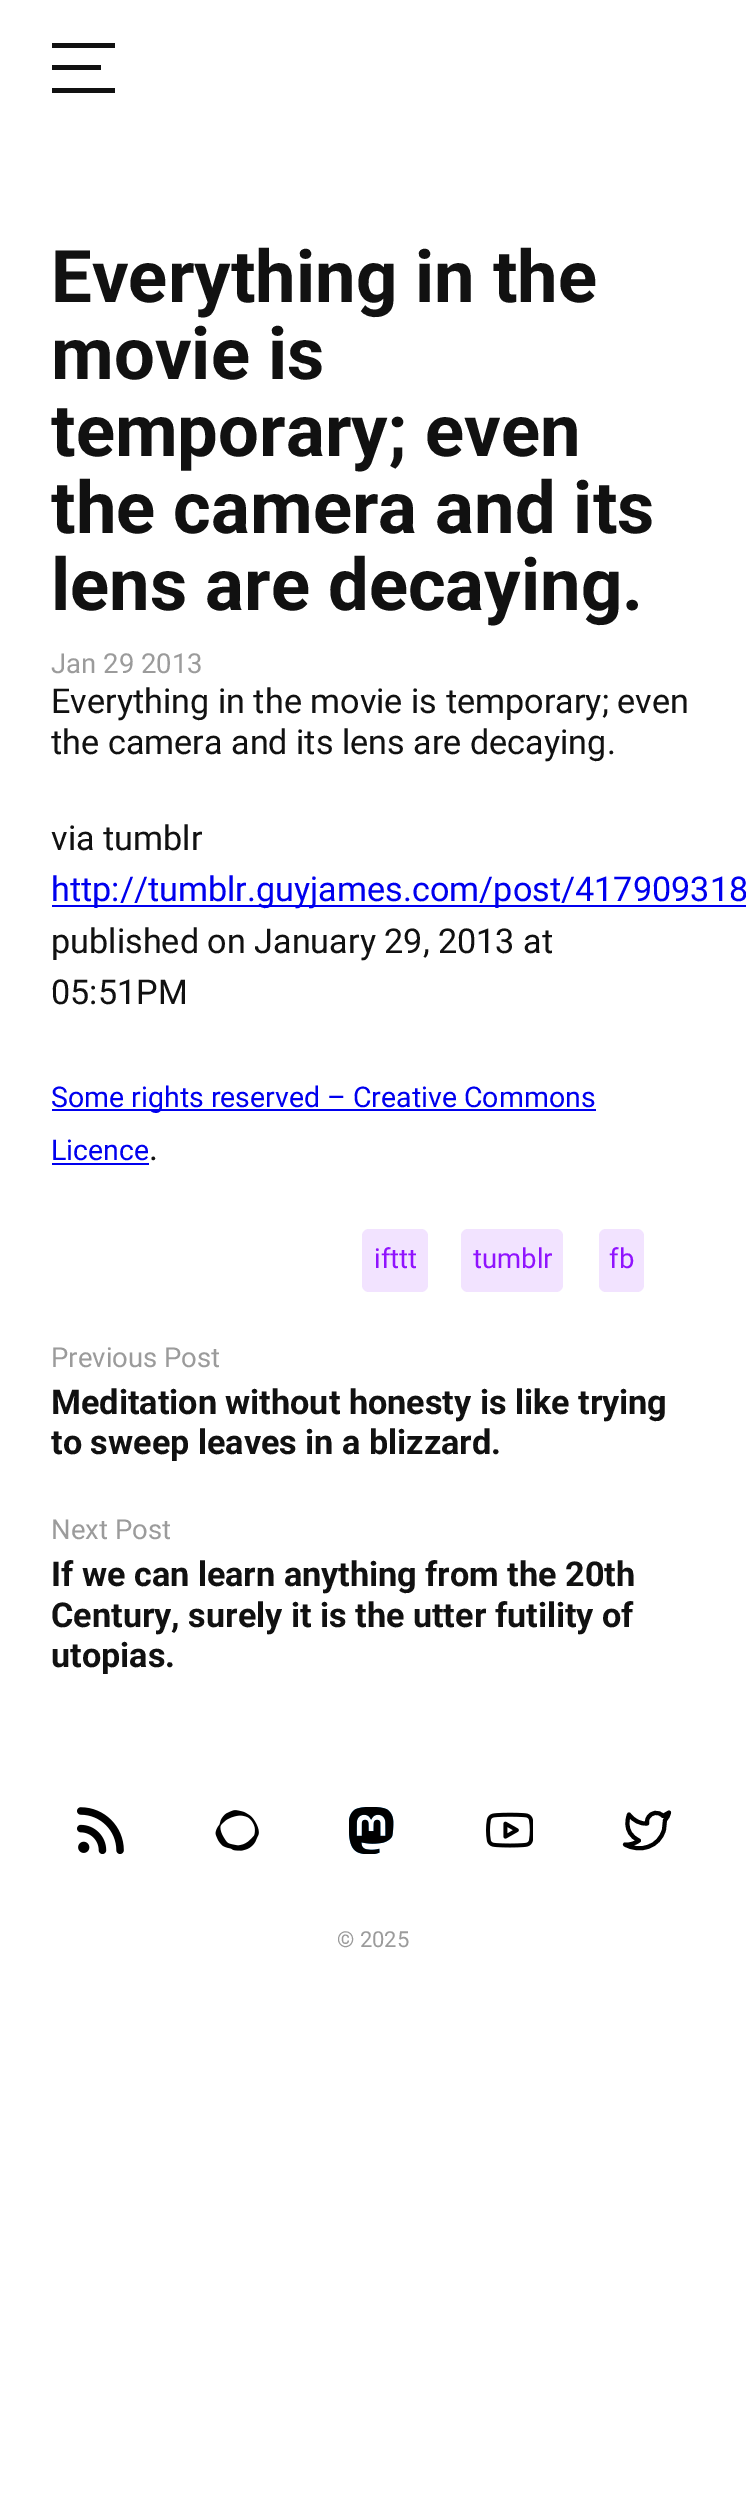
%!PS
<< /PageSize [746 2514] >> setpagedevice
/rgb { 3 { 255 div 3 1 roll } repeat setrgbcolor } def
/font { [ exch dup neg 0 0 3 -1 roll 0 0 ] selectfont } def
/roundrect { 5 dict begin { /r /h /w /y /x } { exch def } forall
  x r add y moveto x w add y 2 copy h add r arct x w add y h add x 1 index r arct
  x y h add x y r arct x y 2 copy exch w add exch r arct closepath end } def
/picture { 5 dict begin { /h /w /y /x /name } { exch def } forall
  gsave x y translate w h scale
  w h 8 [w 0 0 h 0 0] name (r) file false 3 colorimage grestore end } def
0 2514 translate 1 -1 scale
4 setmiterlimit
255 255 255 rgb
0 0 746 2514 rectfill
[
  [52 43 63 5 17 17 17]
  [52 65 49 5 17 17 17]
  [52 88 63 5 17 17 17]
  [52 905 694 2 0 0 238]
  [52 1109 544 2 0 0 238]
  [52 1163 97 2 0 0 238]
] { aload pop rgb rectfill } forall
242 227 255 rgb
362 1229 66 63 7 roundrect fill
461 1229 102 63 7 roundrect fill
599 1229 45 63 7 roundrect fill
(img/1.rgb) 77 1807 47 47 picture
(img/2.rgb) 215 1810 44 41 picture
(img/3.rgb) 349 1807 45 47 picture
(img/4.rgb) 486 1812 47 36 picture
0 0 0 rgb
4 setlinewidth
1 setlinecap
1 setlinejoin
669 1812.5 moveto 663 1816 lineto 658.5 1811 651 1812 648 1818 curveto 647 1819.5 647 1821.5 647 1823.5 curveto 640 1824 633.5 1820.5 629 1814.5 curveto 629 1814.5 621.5 1832.5 639 1840.5 curveto 635 1843.5 630 1845 625 1844.5 curveto 640 1853 659.5 1847 664 1829.5 curveto 665 1820 lineto 667 1818 668.5 1815.5 669 1812.5 curveto closepath stroke
/Roboto-Bold 72.5 font
17 17 17 rgb
[
  [(Everything in the) 51 302]
  [(movie is) 51 379]
  [(temporary; even) 51 456]
  [(the camera and its) 51 533]
  [(lens are decaying.) 51 610]
] { aload pop moveto show } forall
/Roboto-Regular 27.5 font
155 155 155 rgb
51 673 moveto (Jan 29 2013) show
/Roboto-Regular 34.2 font
17 17 17 rgb
[
  [(Everything in the movie is temporary; even) 51 713]
  [(the camera and its lens are decaying.) 51 754]
  [(via tumblr) 51 850]
] { aload pop moveto show } forall
0 0 238 rgb
51 901 moveto (http://tumblr.guyjames.com/post/417909318) show
17 17 17 rgb
51 953 moveto (published on January 29, 2013 at) show
51 1004 moveto (05:51PM) show
/Roboto-Regular 28.5 font
0 0 238 rgb
51 1107 moveto (Some rights reserved – Creative Commons) show
51 1160 moveto (Licence) show
/Roboto-Regular 34.2 font
17 17 17 rgb
149 1160 moveto (.) show
/Roboto-Regular 27.5 font
144 19 254 rgb
[
  [(ifttt) 374 1268]
  [(tumblr) 473 1268]
  [(fb) 609 1268]
] { aload pop moveto show } forall
155 155 155 rgb
51 1367 moveto (Previous Post) show
/Roboto-Bold 34.2 font
17 17 17 rgb
51 1414 moveto (Meditation without honesty is like trying) show
51 1454 moveto (to sweep leaves in a blizzard.) show
/Roboto-Regular 27.5 font
155 155 155 rgb
51 1539 moveto (Next Post) show
/Roboto-Bold 34.2 font
17 17 17 rgb
[
  [(If we can learn anything from the 20th) 51 1586]
  [(Century, surely it is the utter futility of) 51 1627]
  [(utopias.) 51 1667]
] { aload pop moveto show } forall
/Roboto-Regular 22 font
155 155 155 rgb
337 1947 moveto (© 2025) show
showpage
